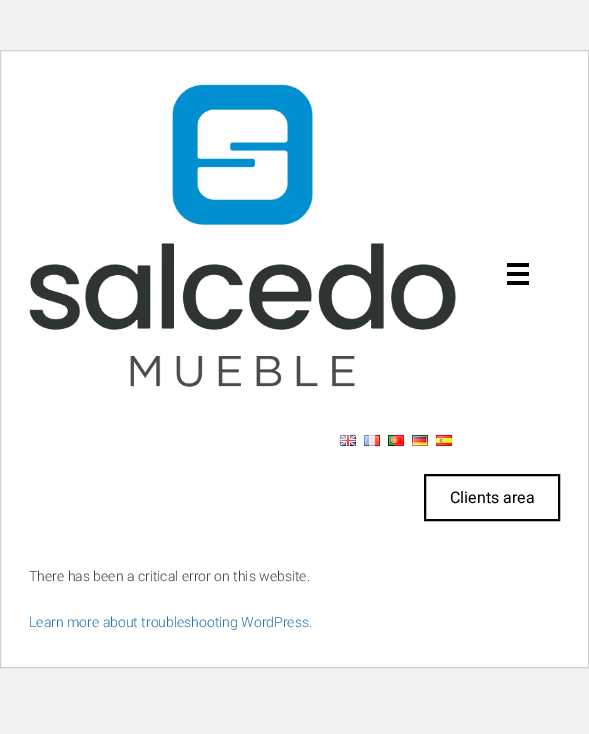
%!PS
<< /PageSize [589 734] >> setpagedevice
/rgb { 3 { 255 div 3 1 roll } repeat setrgbcolor } def
/font { [ exch dup neg 0 0 3 -1 roll 0 0 ] selectfont } def
/picture { 5 dict begin { /h /w /y /x /name } { exch def } forall
  gsave x y translate w h scale
  w h 8 [w 0 0 h 0 0] name (r) file false 3 colorimage grestore end } def
0 734 translate 1 -1 scale
4 setmiterlimit
241 241 241 rgb
0 0 589 734 rectfill
255 255 255 rgb
0.5 50.5 moveto 588.5 50.5 lineto 588.5 667.5 lineto 0.5 667.5 lineto closepath gsave fill grestore
204 208 212 rgb
stroke
(img/1.rgb) 29 84 427 303 picture
(img/2.rgb) 340 435 16 11 picture
(img/3.rgb) 364 435 16 11 picture
(img/4.rgb) 388 435 16 11 picture
(img/5.rgb) 412 435 16 11 picture
(img/6.rgb) 436 435 16 11 picture
[
  [507 263 22 4 0 0 0]
  [507 272 22 4 0 0 0]
  [507 281 22 4 0 0 0]
] { aload pop rgb rectfill } forall
2 setlinewidth
425 475 134 45 rectstroke
/Roboto-Regular 16 font
450 503 moveto (Clients area) show
/Roboto-Light 14 font
68 68 68 rgb
29 581 moveto (There has been a critical error on this website.) show
34 113 177 rgb
29 627 moveto (Learn more about troubleshooting WordPress.) show
showpage
